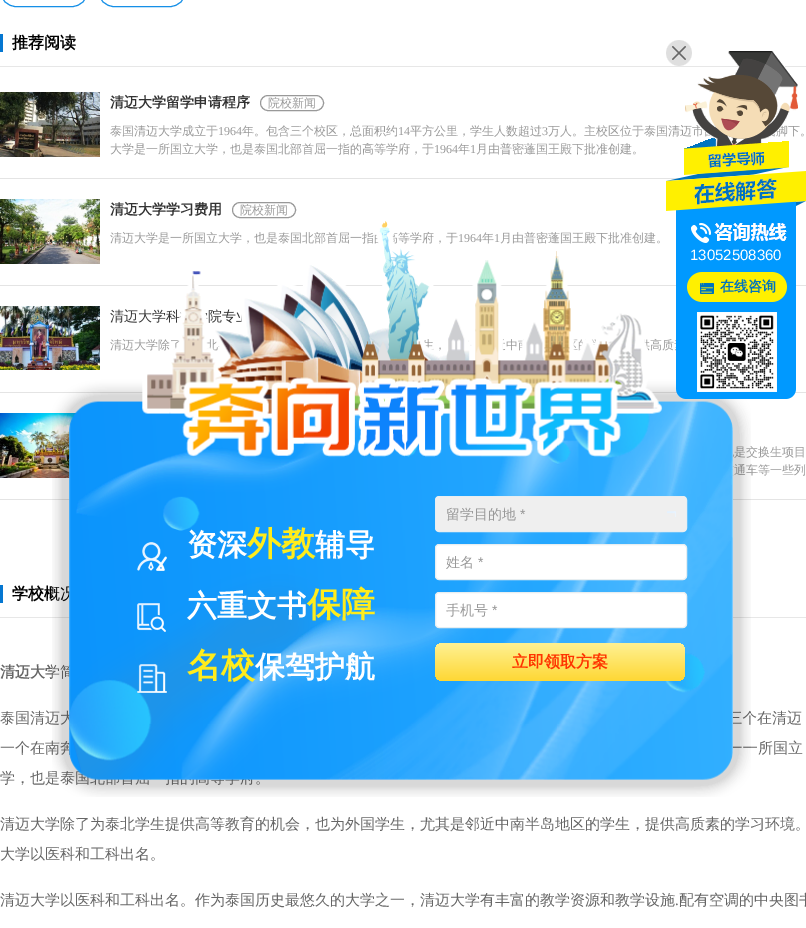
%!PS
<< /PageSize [806 928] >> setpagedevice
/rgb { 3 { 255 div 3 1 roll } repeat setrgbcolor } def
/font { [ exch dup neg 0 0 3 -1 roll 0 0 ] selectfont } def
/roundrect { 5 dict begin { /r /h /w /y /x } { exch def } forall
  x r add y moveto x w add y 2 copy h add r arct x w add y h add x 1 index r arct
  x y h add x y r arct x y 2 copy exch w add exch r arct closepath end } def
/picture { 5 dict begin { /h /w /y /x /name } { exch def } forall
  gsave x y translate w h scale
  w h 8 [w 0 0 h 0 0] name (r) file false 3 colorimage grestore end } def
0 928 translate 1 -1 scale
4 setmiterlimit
255 255 255 rgb
0 0 806 928 rectfill
21 143 231 rgb
0.5 -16.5 87 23 15.5 roundrect stroke
98.5 -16.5 87 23 15.5 roundrect stroke
[
  [0 66 806 1 231 231 231]
  [0 34 3 18 5 119 209]
  [0 178 707 1 228 228 228]
] { aload pop rgb rectfill } forall
(img/1.rgb) 0 92 100 65 picture
153 153 153 rgb
260.5 95.5 63 15 7.5 roundrect stroke
228 228 228 rgb
0 285 806 1 rectfill
(img/2.rgb) 0 199 100 65 picture
153 153 153 rgb
232.5 202.5 63 15 7.5 roundrect stroke
228 228 228 rgb
0 392 806 1 rectfill
(img/3.rgb) 0 306 100 64 picture
0 499 806 1 rectfill
(img/4.rgb) 0 413 77 65 picture
231 231 231 rgb
0 617 806 1 rectfill
5 119 209 rgb
0 585 3 18 rectfill
/WenQuanYiZenHei-Bold 16 font
0 0 0 rgb
12 48 moveto (推荐阅读) show
/WenQuanYiZenHei-Bold 14 font
51 51 51 rgb
110 107 moveto (清迈大学留学申请程序) show
/WenQuanYiZenHei-Medium 12 font
153 153 153 rgb
268 107 moveto (院校新闻) show
110 135 moveto (泰国清迈大学成立于) show
/LiberationSerif-Regular 12 font
218 135 moveto (1964) show
/WenQuanYiZenHei-Medium 12 font
242 135 moveto (年。包含三个校区，总面积约) show
/LiberationSerif-Regular 12 font
398 135 moveto (14) show
/WenQuanYiZenHei-Medium 12 font
410 135 moveto (平方公里，学生人数超过) show
/LiberationSerif-Regular 12 font
542 135 moveto (3) show
/WenQuanYiZenHei-Medium 12 font
[
  [(万人。主校区位于泰国清迈) 548 135]
  [(下。) 788 135]
  [(大学是一所国立大学，也是泰国北部首屈一指的高等学府，于) 110 153]
] { aload pop moveto show } forall
/LiberationSerif-Regular 12 font
434 153 moveto (1964) show
/WenQuanYiZenHei-Medium 12 font
458 153 moveto (年) show
/LiberationSerif-Regular 12 font
470 153 moveto (1) show
/WenQuanYiZenHei-Medium 12 font
476 153 moveto (月由普密蓬国王殿下批准创建。) show
/WenQuanYiZenHei-Bold 14 font
51 51 51 rgb
110 214 moveto (清迈大学学习费用) show
/WenQuanYiZenHei-Medium 12 font
153 153 153 rgb
[
  [(院校新闻) 240 214]
  [(清迈大学是一所国立大学，也是泰国北部首屈一指) 110 242]
  [(等学府，于) 398 242]
] { aload pop moveto show } forall
/LiberationSerif-Regular 12 font
458 242 moveto (1964) show
/WenQuanYiZenHei-Medium 12 font
482 242 moveto (年) show
/LiberationSerif-Regular 12 font
494 242 moveto (1) show
/WenQuanYiZenHei-Medium 12 font
500 242 moveto (月由普密蓬国王殿下批准创建。) show
/WenQuanYiZenHei-Bold 14 font
51 51 51 rgb
110 321 moveto (清迈大学科) show
208 321 moveto (院专) show
/WenQuanYiZenHei-Medium 12 font
153 153 153 rgb
[
  [(清迈大学除) 110 349]
  [(，) 434 349]
  [(中) 506 349]
  [(高质) 650 349]
  [(是交换生项目) 734 456]
  [(通车等一些列) 734 474]
] { aload pop moveto show } forall
/WenQuanYiZenHei-Bold 16 font
0 0 0 rgb
12 599 moveto (学校概况) show
/WenQuanYiZenHei-Bold 15 font
102 102 102 rgb
0 677 moveto (清迈大学简) show
/WenQuanYiZenHei-Medium 15 font
[
  [(泰国清迈大) 0 723]
  [(三个在清迈) 727 723]
  [(一个在南奔) 0 753]
  [(一一所国立) 728 753]
  [(学，也是泰) 0 783]
  [(。) 255 783]
  [(清迈大学除了为泰北学生提供高等教育的机会，也为外国学生，尤其是邻近中南半岛地区的学生，提供高质素的学习环境。) 0 829]
  [(大学以医科和工科出名。) 0 859]
  [(清迈大学以医科和工科出名。作为泰国历史最悠久的大学之一，清迈大学有丰富的教学资源和教学设施) 0 905]
] { aload pop moveto show } forall
/LiberationSerif-Regular 15 font
675 905 moveto (.) show
/WenQuanYiZenHei-Medium 15 font
679 905 moveto (配有空调的中央图书) show
(img/7.rgb) 684 51 114 99 picture
(img/6.rgb) 666 40 26 26 picture
(img/10.rgb) 52 221 699 576 picture
(img/5.rgb) 666 150 140 249 picture
(img/9.rgb) 697 312 80 80 picture
/LiberationSans-Regular 15 font
255 255 255 rgb
690 260 moveto (13052508360) show
(img/8.rgb) 687 272 100 30 picture
/WenQuanYiZenHei-Bold 14 font
0 115 191 rgb
720 291 moveto (在线咨询) show
(img/11.rgb) 137 542 30 29 picture
/WenQuanYiZenHei-Bold 30 font
255 255 255 rgb
187 555 moveto (资深) show
/WenQuanYiZenHei-Bold 34 font
255 236 28 rgb
247 555 moveto (外教) show
/WenQuanYiZenHei-Bold 30 font
255 255 255 rgb
315 555 moveto (辅导) show
(img/12.rgb) 137 603 29 29 picture
187 616 moveto (六重文书) show
/WenQuanYiZenHei-Bold 34 font
255 236 28 rgb
307 616 moveto (保障) show
(img/13.rgb) 137 664 30 29 picture
187 677 moveto (名校) show
/WenQuanYiZenHei-Bold 30 font
255 255 255 rgb
255 677 moveto (保驾护航) show
231 238 241 rgb
435.5 496.5 251 35 3.5 roundrect stroke
239 239 239 rgb
436 497 250 34 rectfill
/WenQuanYiZenHei-Medium 14 font
153 153 153 rgb
446 519 moveto (留学目的地) show
/LiberationSans-Regular 14 font
520 519 moveto (*) show
(img/14.rgb) 667 511 9 6 picture
255 255 255 rgb
435.5 544.5 251 35 3.5 roundrect gsave fill grestore
231 238 241 rgb
stroke
/WenQuanYiZenHei-Medium 14 font
153 153 153 rgb
446 567 moveto (姓名) show
/LiberationSans-Regular 14 font
478 567 moveto (*) show
255 255 255 rgb
435.5 592.5 251 35 3.5 roundrect gsave fill grestore
231 238 241 rgb
stroke
/WenQuanYiZenHei-Medium 14 font
153 153 153 rgb
446 615 moveto (手机号) show
/LiberationSans-Regular 14 font
492 615 moveto (*) show
gsave 435 643 250 38 8 roundrect clip newpath
<< /ShadingType 2 /ColorSpace /DeviceRGB /Coords [560 643 560 681] /Extend [true true] /Function << /FunctionType 2 /Domain [0 1] /C0 [1 0.945 0.576] /C1 [0.996 0.843 0.204] /N 1 >> >> shfill grestore
/WenQuanYiZenHei-Bold 16 font
255 52 0 rgb
512 667 moveto (立即领取方案) show
showpage
